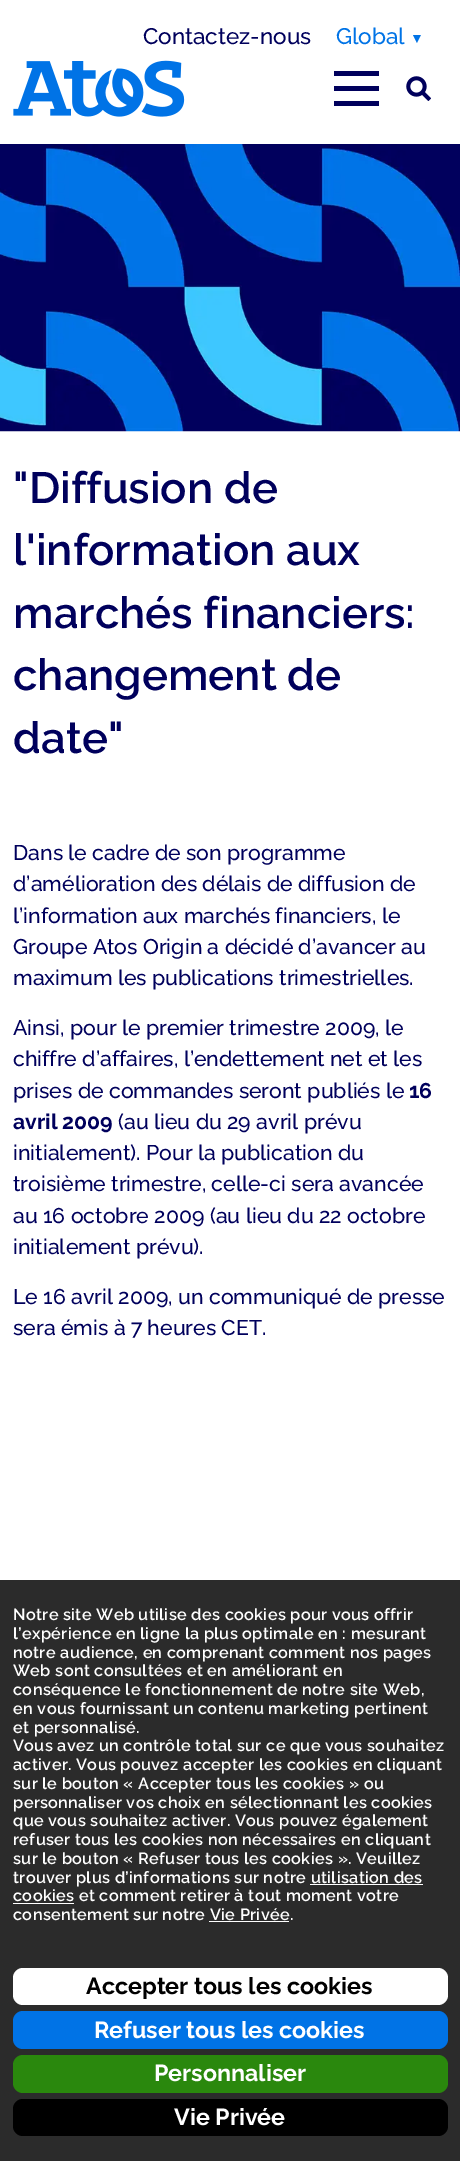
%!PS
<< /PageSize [460 2161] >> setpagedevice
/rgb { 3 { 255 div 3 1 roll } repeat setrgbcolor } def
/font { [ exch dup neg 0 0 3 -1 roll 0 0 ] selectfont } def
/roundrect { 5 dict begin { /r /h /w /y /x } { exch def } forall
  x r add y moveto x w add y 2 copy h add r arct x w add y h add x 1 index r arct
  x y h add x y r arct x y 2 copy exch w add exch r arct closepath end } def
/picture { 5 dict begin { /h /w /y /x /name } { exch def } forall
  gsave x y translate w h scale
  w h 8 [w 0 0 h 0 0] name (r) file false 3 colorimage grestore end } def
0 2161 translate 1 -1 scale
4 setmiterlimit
255 255 255 rgb
0 0 460 2161 rectfill
(img/1.rgb) 13 60 172 57 picture
[
  [334 71 45 5 0 0 92]
  [334 86 45 5 0 0 92]
  [334 101 45 5 0 0 92]
] { aload pop rgb rectfill } forall
(img/2.rgb) 406 76 25 25 picture
(img/3.rgb) 0 144 460 288 picture
[
  [0 1580 460 581 43 43 43]
  [310 1884 113 1 255 255 255]
  [13 1903 61 1 255 255 255]
  [209 1921 80 1 255 255 255]
] { aload pop rgb rectfill } forall
13 1968 435 37 10 roundrect fill
0 115 230 rgb
13 2011 435 38 10 roundrect fill
42 136 13 rgb
13 2055 435 38 10 roundrect fill
0 0 0 rgb
13 2099 435 37 10 roundrect fill
/Raleway-Medium 22.5 font
0 0 92 rgb
143 44 moveto (Contactez-nous) show
0 115 230 rgb
336 44 moveto (Global) show
/LiberationSans-Regular 14 font
410 43 moveto 4 0 (▼) ashow
/Raleway-SemiBold 43.75 font
0 0 92 rgb
[
  [("Diffusion de) 13 503]
  [(l'information aux) 13 565]
  [(marchés financiers:) 13 628]
  [(changement de) 13 690]
  [(date") 13 753]
] { aload pop moveto show } forall
/Raleway-Medium 21.25 font
[
  [(Dans le cadre de son programme) 13 860]
  [(d’amélioration des délais de diffusion de) 13 891]
  [(l’information aux marchés financiers, le) 13 923]
  [(Groupe Atos Origin a décidé d’avancer au) 13 954]
  [(maximum les publications trimestrielles.) 13 985]
  [(Ainsi, pour le premier trimestre 2009, le) 13 1035]
  [(chiffre d’affaires, l’endettement net et les) 13 1066]
  [(prises de commandes seront publiés le) 13 1098]
] { aload pop moveto show } forall
/Raleway-Bold 21.25 font
409 1098 moveto (16) show
13 1129 moveto (avril 2009) show
/Raleway-Medium 21.25 font
[
  [(\(au lieu du 29 avril prévu) 118 1129]
  [(initialement\). Pour la publication du) 13 1160]
  [(troisième trimestre, celle-ci sera avancée) 13 1191]
  [(au 16 octobre 2009 \(au lieu du 22 octobre) 13 1223]
  [(initialement prévu\).) 13 1254]
  [(Le 16 avril 2009, un communiqué de presse) 13 1304]
  [(sera émis à 7 heures CET.) 13 1335]
] { aload pop moveto show } forall
/Raleway-SemiBold 16.25 font
255 255 255 rgb
13 1620 moveto 0.33 0 (Notre site Web utilise des cookies pour vous offrir) ashow
13 1639 moveto 0.33 0 (l’expérience en ligne la plus optimale en : mesurant) ashow
13 1658 moveto 0.33 0 (notre audience, en comprenant comment nos pages) ashow
13 1676 moveto 0.33 0 (Web sont consultées et en améliorant en) ashow
13 1695 moveto 0.33 0 (conséquence le fonctionnement de notre site Web,) ashow
13 1714 moveto 0.33 0 (en vous fournissant un contenu marketing pertinent) ashow
13 1733 moveto 0.33 0 (et personnalisé.) ashow
13 1751 moveto 0.33 0 (Vous avez un contrôle total sur ce que vous souhaitez) ashow
13 1770 moveto 0.33 0 (activer. Vous pouvez accepter les cookies en cliquant) ashow
13 1789 moveto 0.33 0 (sur le bouton « Accepter tous les cookies » ou) ashow
13 1808 moveto 0.33 0 (personnaliser vos choix en sélectionnant les cookies) ashow
13 1826 moveto 0.33 0 (que vous souhaitez activer. Vous pouvez également) ashow
13 1845 moveto 0.33 0 (refuser tous les cookies non nécessaires en cliquant) ashow
13 1864 moveto 0.33 0 (sur le bouton « Refuser tous les cookies ». Veuillez) ashow
13 1883 moveto 0.33 0 (trouver plus d’informations sur notre utilisation des) ashow
13 1901 moveto 0.33 0 (cookies et comment retirer à tout moment votre) ashow
13 1920 moveto 0.33 0 (consentement sur notre Vie Privée.) ashow
/Raleway-Bold 23.25 font
0 0 0 rgb
86 1994 moveto (Accepter tous les cookies) show
255 255 255 rgb
[
  [(Refuser tous les cookies) 94 2038]
  [(Personnaliser) 154 2081]
  [(Vie Privée) 174 2125]
] { aload pop moveto show } forall
showpage
